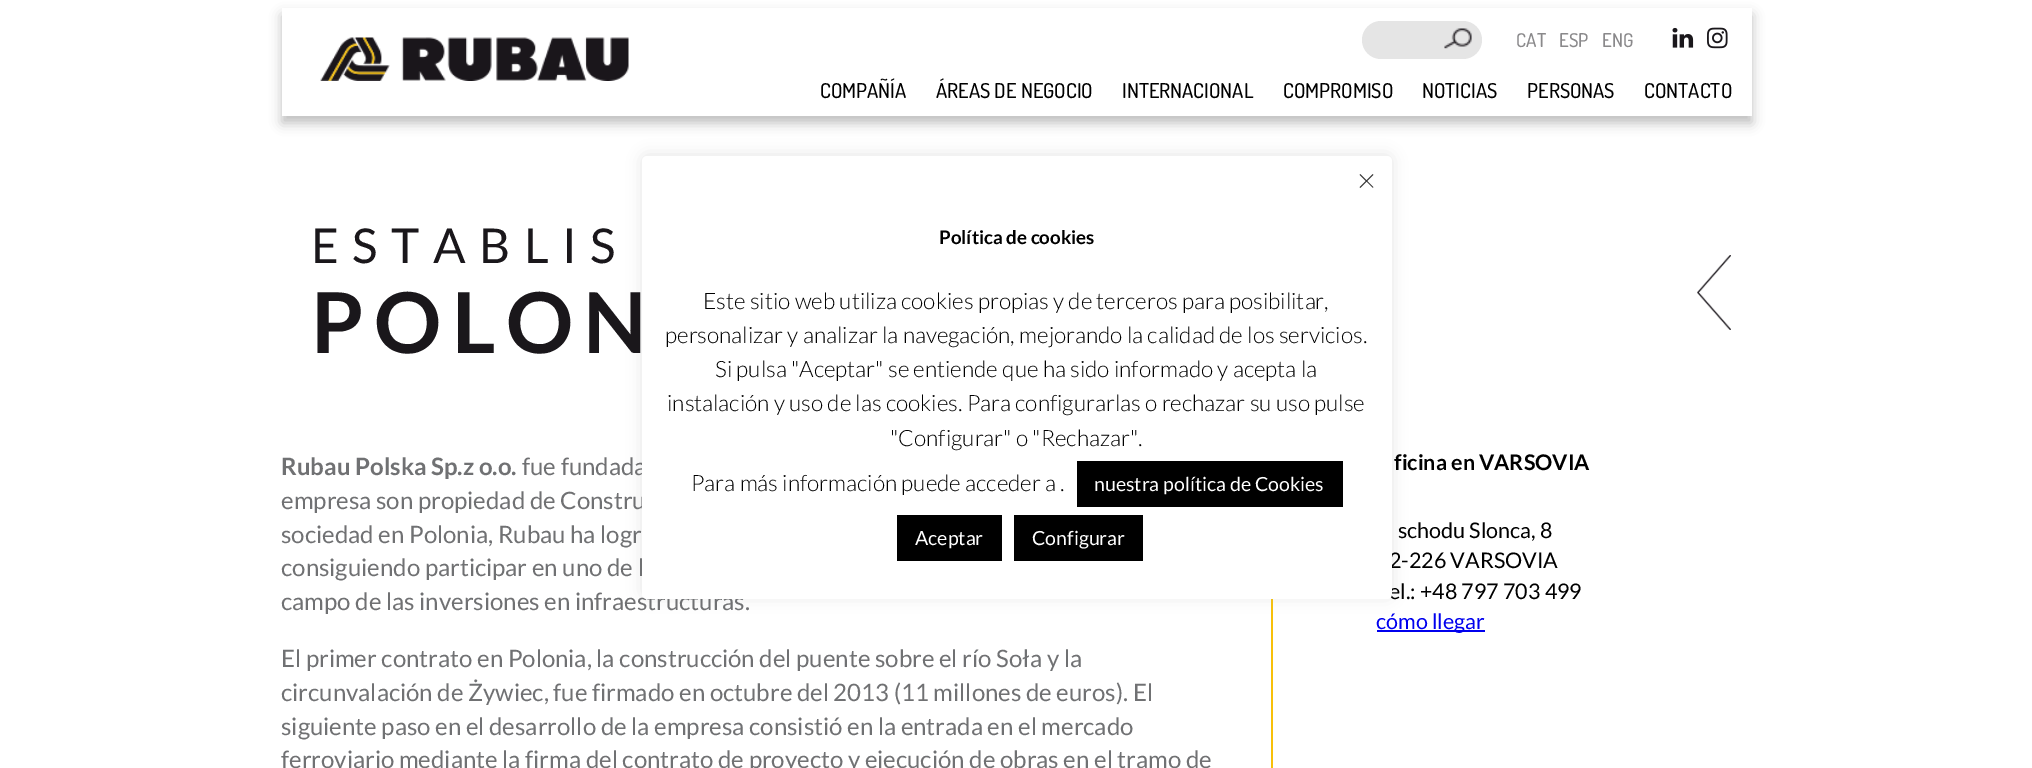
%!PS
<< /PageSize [2032 768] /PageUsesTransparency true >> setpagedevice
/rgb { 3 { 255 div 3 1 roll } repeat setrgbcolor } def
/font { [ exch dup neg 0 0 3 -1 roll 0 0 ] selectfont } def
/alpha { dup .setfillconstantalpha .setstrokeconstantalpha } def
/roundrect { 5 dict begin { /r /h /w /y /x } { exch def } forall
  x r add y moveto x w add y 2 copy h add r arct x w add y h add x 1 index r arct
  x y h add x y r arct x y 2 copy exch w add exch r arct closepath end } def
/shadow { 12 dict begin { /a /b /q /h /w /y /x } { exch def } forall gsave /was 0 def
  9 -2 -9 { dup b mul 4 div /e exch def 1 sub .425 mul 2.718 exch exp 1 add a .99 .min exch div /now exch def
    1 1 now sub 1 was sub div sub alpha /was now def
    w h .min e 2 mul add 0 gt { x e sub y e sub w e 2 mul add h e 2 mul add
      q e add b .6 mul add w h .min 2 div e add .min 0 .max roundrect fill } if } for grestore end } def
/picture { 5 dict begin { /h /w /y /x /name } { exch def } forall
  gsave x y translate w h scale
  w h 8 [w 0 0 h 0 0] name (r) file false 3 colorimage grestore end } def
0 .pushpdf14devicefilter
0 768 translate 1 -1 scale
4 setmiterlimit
255 255 255 rgb
0 0 2032 768 rectfill
0 0 0 rgb
282 15 1470 108 0 6 0.25 shadow
255 255 255 rgb
282 8 1470 108 rectfill
(img/1.rgb) 320 37 309 44 picture
229 229 229 rgb
1362 21 120 38 19 roundrect fill
(img/2.rgb) 1444 28 28 21 picture
(img/3.rgb) 1672 27 22 21 picture
(img/4.rgb) 1707 27 21 22 picture
248 192 9 rgb
1271 599 2 169 rectfill
172 171 171 rgb
642 155 750 442 5 7.5 0.3 shadow
(img/5.rgb) 1697 255 34 75 picture
0 0 238 rgb
1377 630 108 2 rectfill
/Dosis-Medium 19 font
138 137 139 rgb
[
  [(CAT) 1516 47]
  [(ESP) 1559 47]
  [(ENG) 1602 47]
] { aload pop moveto show } forall
/Dosis-Medium 20.5 font
0 0 0 rgb
[
  [(COMPAÑÍA) 820 98]
  [(ÁREAS DE NEGOCIO) 936 98]
  [(INTERNACIONAL) 1122 98]
  [(COMPROMISO) 1283 98]
  [(NOTICIAS) 1422 98]
  [(PERSONAS) 1527 98]
  [(CONTACTO) 1644 98]
] { aload pop moveto show } forall
/Lato-Regular 48 font
26 23 27 rgb
311 263 moveto 13.5 0 (ESTABLIS) ashow
/Lato-Bold 84 font
311 353 moveto 10.5 0 (POLON) ashow
/Lato-Bold 24 font
112 113 115 rgb
281 475 moveto (Rubau Polska Sp.z o.o.) show
/Lato-Regular 24 font
[
  [(fue fundada) 522 475]
  [(empresa son propiedad de Constru) 281 509]
  [(sociedad en Polonia, Rubau ha logr) 281 543]
  [(consiguiendo participar en uno de l) 281 576]
  [(campo de las inversiones en infraestructuras.) 281 610]
  [(El primer contrato en Polonia, la construcción del puente sobre el río Soła y la) 281 667]
  [(circunvalación de Żywiec, fue firmado en octubre del 2013 \(11 millones de euros\). El) 281 701]
  [(siguiente paso en el desarrollo de la empresa consistió en la entrada en el mercado) 281 735]
  [(ferroviario mediante la firma del contrato de proyecto y ejecución de obras en el tramo de) 281 768]
] { aload pop moveto show } forall
/Lato-Bold 21.5 font
0 0 0 rgb
1394 470 moveto (ficina en VARSOVIA) show
/Lato-Regular 21.5 font
[
  [(schodu Slonca, 8) 1398 538]
  [(2-226 VARSOVIA) 1389 568]
  [(el.: +48 797 703 499) 1389 599]
] { aload pop moveto show } forall
255 255 255 rgb
642 156 750 443 5 roundrect fill
0 0 0 rgb
1014 515 129 46 rectfill
/Lato-Regular 19.5 font
255 255 255 rgb
1032 545 moveto (Configurar) show
0 0 0 rgb
897 515 105 46 rectfill
255 255 255 rgb
915 545 moveto (Aceptar) show
0 0 0 rgb
1077 461 266 46 rectfill
255 255 255 rgb
1094 491 moveto (nuestra política de Cookies) show
/Lato-Light 33 font
51 51 51 rgb
1357 192 moveto (×) show
/Lato-Light 22.5 font
0 0 0 rgb
[
  [(Para más información puede acceder a .) 691 491]
  [("Configurar" o "Rechazar".) 890 446]
  [(instalación y uso de las cookies. Para configurarlas o rechazar su uso pulse) 667 411]
  [(Si pulsa "Aceptar" se entiende que ha sido informado y acepta la) 715 377]
  [(personalizar y analizar la navegación, mejorando la calidad de los servicios.) 665 343]
  [(Este sitio web utiliza cookies propias y de terceros para posibilitar,) 703 309]
] { aload pop moveto show } forall
/Lato-Bold 18.75 font
939 244 moveto (Política de cookies) show
/Lato-Regular 21.5 font
0 0 238 rgb
1376 629 moveto (cómo llegar) show
.poppdf14devicefilter showpage
